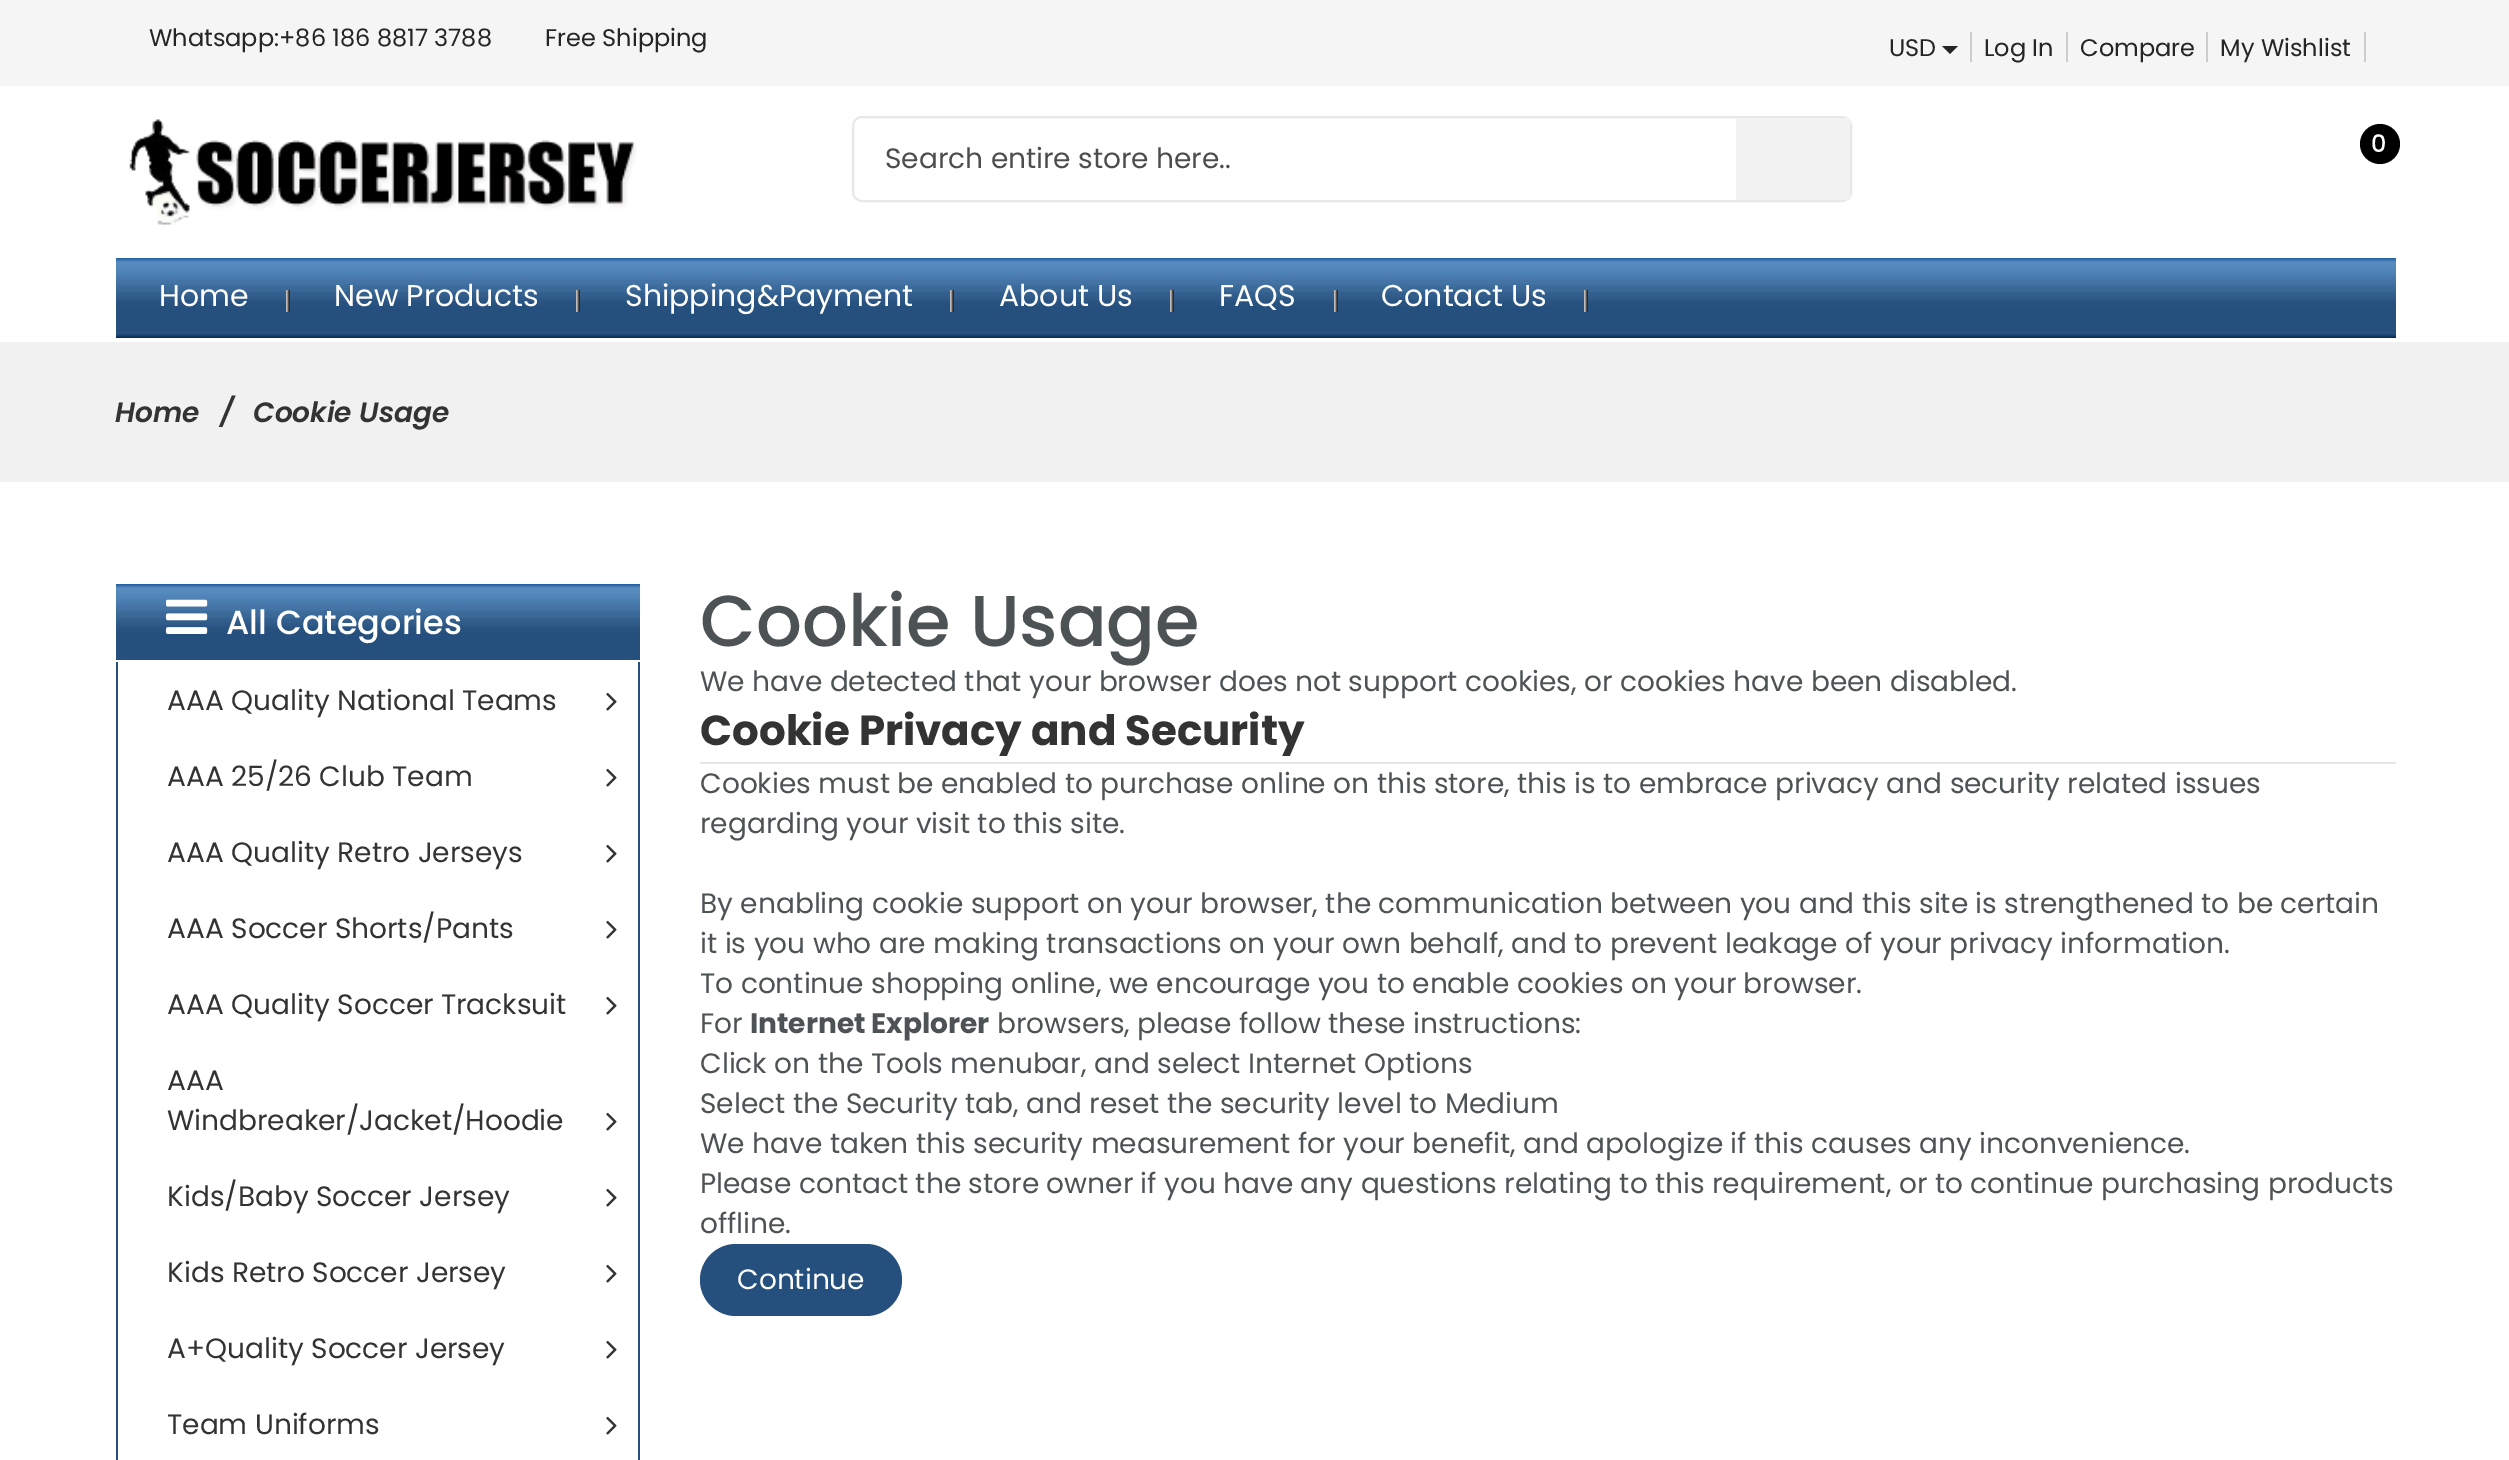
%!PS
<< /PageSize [2509 1460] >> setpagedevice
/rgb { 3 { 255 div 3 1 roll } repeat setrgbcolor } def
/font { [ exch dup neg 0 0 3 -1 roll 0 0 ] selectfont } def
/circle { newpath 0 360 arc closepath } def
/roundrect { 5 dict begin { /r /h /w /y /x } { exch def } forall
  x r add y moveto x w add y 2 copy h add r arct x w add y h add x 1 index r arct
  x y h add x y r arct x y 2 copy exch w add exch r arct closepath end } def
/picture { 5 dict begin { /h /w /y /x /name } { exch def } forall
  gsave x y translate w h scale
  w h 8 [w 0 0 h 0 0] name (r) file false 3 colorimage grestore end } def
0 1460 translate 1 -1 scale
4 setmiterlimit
255 255 255 rgb
0 0 2509 1460 rectfill
245 245 245 rgb
0 0 2509 86 rectfill
204 204 204 rgb
1970 32 2 30 rectfill
37 37 37 rgb
1942 46 moveto 1958 46 lineto 1950 54 lineto closepath fill
[
  [2066 32 2 30 204 204 204]
  [2206 32 2 30 204 204 204]
  [2364 32 2 30 204 204 204]
] { aload pop rgb rectfill } forall
(img/1.rgb) 129 119 508 106 picture
0 0 0 rgb
2380 144 20 circle fill
232 232 232 rgb
2 setlinewidth
853 117 998 84 9 roundrect stroke
242 242 242 rgb
1736 118 114 82 rectfill
(img/2.rgb) 116 258 2280 80 picture
(img/3.rgb) 286 290 4 22 picture
(img/3.rgb) 576 290 4 22 picture
(img/3.rgb) 950 290 4 22 picture
(img/3.rgb) 1170 290 4 22 picture
(img/3.rgb) 1334 290 4 22 picture
(img/3.rgb) 1584 290 4 22 picture
241 241 241 rgb
0 342 2509 140 rectfill
(img/4.rgb) 116 584 524 76 picture
(img/5.rgb) 166 599 42 35 picture
37 79 124 rgb
638 662 2 798 rectfill
116 662 2 798 rectfill
(img/6.rgb) 606 692 11 19 picture
(img/6.rgb) 606 768 11 19 picture
(img/6.rgb) 606 844 11 19 picture
(img/6.rgb) 606 920 11 19 picture
(img/6.rgb) 606 996 11 19 picture
(img/6.rgb) 606 1112 11 19 picture
(img/6.rgb) 606 1188 11 19 picture
(img/6.rgb) 606 1264 11 19 picture
(img/6.rgb) 606 1340 11 19 picture
(img/6.rgb) 606 1416 11 19 picture
229 229 229 rgb
700 762 1696 2 rectfill
37 79 124 rgb
700 1244 202 72 36 roundrect fill
/Poppins-Regular 24 font
37 37 37 rgb
[
  [(Whatsapp:+86 186 8817 3788) 149 46]
  [(Free Shipping) 545 46]
  [(USD) 1889 56]
  [(Log In) 1984 56]
  [(Compare) 2080 56]
  [(My Wishlist) 2220 56]
] { aload pop moveto show } forall
/Poppins-Medium 24 font
255 255 255 rgb
2371 152 moveto (0) show
/Poppins-Regular 28 font
77 77 77 rgb
885 168 moveto (Search entire store here..) show
/Poppins-Regular 30 font
255 255 255 rgb
[
  [(Home) 159 306]
  [(New Products) 334 306]
  [(Shipping&Payment) 625 306]
  [(About Us) 999 306]
  [(FAQS) 1219 306]
  [(Contact Us) 1381 306]
] { aload pop moveto show } forall
/Poppins-SemiBoldItalic 28 font
51 51 51 rgb
[
  [(Home) 115 422]
  [(/) 220 422]
  [(Cookie Usage) 253 422]
] { aload pop moveto show } forall
/Poppins-Medium 33.5 font
255 255 255 rgb
226 634 moveto (All Categories) show
/Poppins-Regular 28 font
51 51 51 rgb
[
  [(AAA Quality National Teams) 167 710]
  [(AAA 25/26 Club Team) 167 786]
  [(AAA Quality Retro Jerseys) 167 862]
  [(AAA Soccer Shorts/Pants) 167 938]
  [(AAA Quality Soccer Tracksuit) 167 1014]
  [(AAA) 167 1090]
  [(Windbreaker/Jacket/Hoodie) 167 1130]
  [(Kids/Baby Soccer Jersey) 167 1206]
  [(Kids Retro Soccer Jersey) 167 1282]
  [(A+Quality Soccer Jersey) 167 1358]
  [(Team Uniforms) 167 1434]
] { aload pop moveto show } forall
/Poppins-Medium 72 font
77 82 85 rgb
700 646 moveto (Cookie Usage) show
/Poppins-Regular 28 font
700 691 moveto (We have detected that your browser does not support cookies, or cookies have been disabled.) show
/Poppins-Bold 42 font
51 51 51 rgb
700 745 moveto (Cookie Privacy and Security) show
/Poppins-Regular 28 font
77 82 85 rgb
[
  [(Cookies must be enabled to purchase online on this store, this is to embrace privacy and security related issues) 700 793]
  [(regarding your visit to this site.) 700 833]
  [(By enabling cookie support on your browser, the communication between you and this site is strengthened to be certain) 700 913]
  [(it is you who are making transactions on your own behalf, and to prevent leakage of your privacy information.) 700 953]
  [(To continue shopping online, we encourage you to enable cookies on your browser.) 700 993]
  [(For) 700 1033]
] { aload pop moveto show } forall
/Poppins-Bold 28 font
750 1033 moveto (Internet Explorer) show
/Poppins-Regular 28 font
[
  [(browsers, please follow these instructions:) 997 1033]
  [(Click on the Tools menubar, and select Internet Options) 700 1073]
  [(Select the Security tab, and reset the security level to Medium) 700 1113]
  [(We have taken this security measurement for your benefit, and apologize if this causes any inconvenience.) 700 1153]
  [(Please contact the store owner if you have any questions relating to this requirement, or to continue purchasing products) 700 1193]
  [(offline.) 700 1233]
] { aload pop moveto show } forall
255 255 255 rgb
737 1289 moveto (Continue) show
showpage
